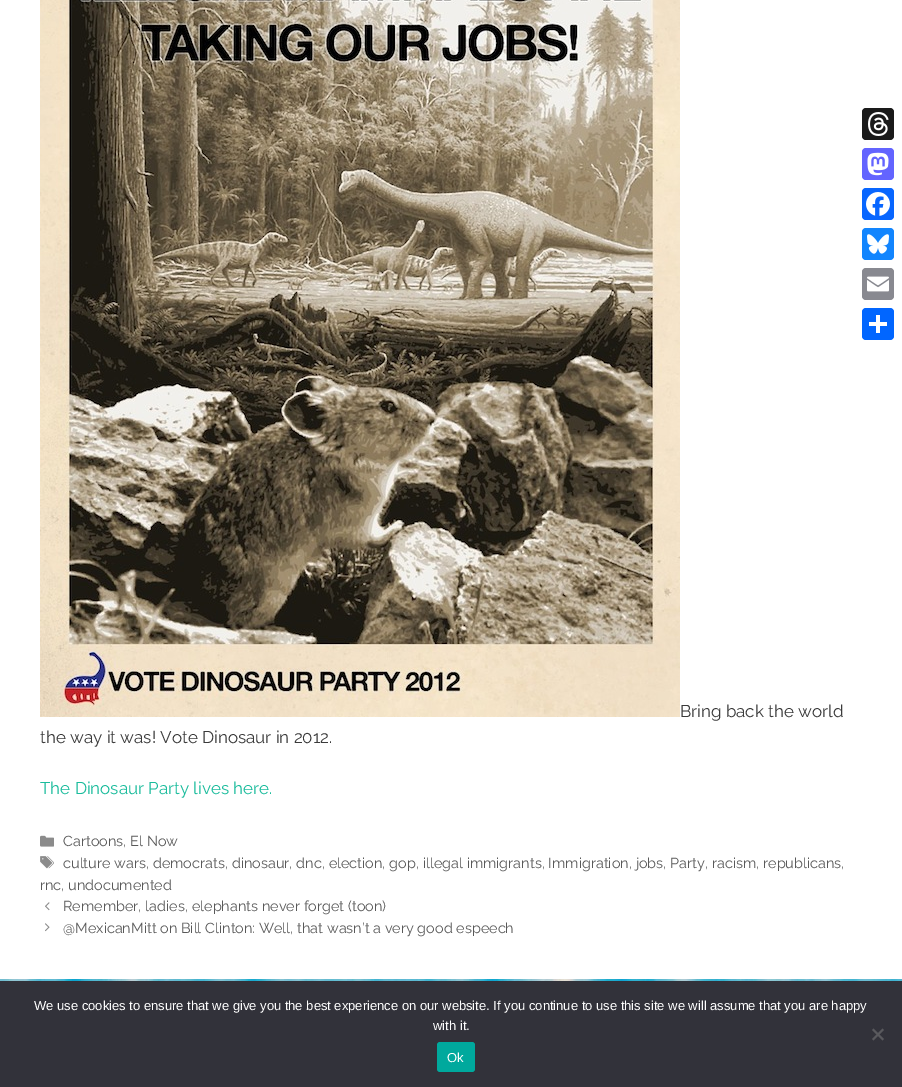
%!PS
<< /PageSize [902 1087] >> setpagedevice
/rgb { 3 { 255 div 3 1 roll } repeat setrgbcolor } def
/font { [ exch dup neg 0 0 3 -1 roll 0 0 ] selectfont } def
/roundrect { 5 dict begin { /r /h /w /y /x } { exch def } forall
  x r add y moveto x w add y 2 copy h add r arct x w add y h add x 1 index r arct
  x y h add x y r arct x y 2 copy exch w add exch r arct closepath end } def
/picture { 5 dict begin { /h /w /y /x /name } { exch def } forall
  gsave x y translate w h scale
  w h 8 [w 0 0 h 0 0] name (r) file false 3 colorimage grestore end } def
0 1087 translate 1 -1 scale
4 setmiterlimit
255 255 255 rgb
0 0 902 1087 rectfill
(img/1.rgb) 0 979 902 2 picture
26 26 26 rgb
862 108 32 32 4 roundrect fill
(img/2.rgb) 868 112 21 24 picture
99 100 255 rgb
862 148 32 32 4 roundrect fill
(img/3.rgb) 867 152 22 24 picture
8 102 255 rgb
862 188 32 32 4 roundrect fill
(img/4.rgb) 866 192 24 24 picture
18 133 254 rgb
862 228 32 32 4 roundrect fill
(img/5.rgb) 867 234 22 20 picture
136 137 144 rgb
862 268 32 32 4 roundrect fill
(img/6.rgb) 867 276 22 16 picture
1 102 255 rgb
862 308 32 32 4 roundrect fill
255 255 255 rgb
876 315 4 18 rectfill
869 322 18 4 rectfill
(img/7.rgb) 40 0 640 717 picture
(img/8.rgb) 40 835 14 12 picture
(img/9.rgb) 40 856 14 13 picture
(img/10.rgb) 45 902 5 9 picture
(img/11.rgb) 45 923 5 9 picture
50 50 58 rgb
0 981 902 106 rectfill
89 89 93 rgb
882.5 1028.5 moveto 884 1030 lineto 873.5 1040.5 lineto 872 1039 lineto closepath fill
872 1030 moveto 873.5 1028.5 lineto 884 1039 lineto 882.5 1040.5 lineto closepath fill
0 169 157 rgb
437 1042 38 30 3 roundrect fill
/Raleway-Regular 17 font
58 58 58 rgb
680 717 moveto (Bring back the world) show
40 743 moveto (the way it was! Vote Dinosaur in 2012.) show
26 188 156 rgb
40 794 moveto (The Dinosaur Party lives here.) show
/Raleway-Regular 14.45 font
89 89 89 rgb
[
  [(Cartoons, El Now) 63 846]
  [(culture wars, democrats, dinosaur, dnc, election, gop, illegal immigrants, Immigration, jobs, Party, racism, republicans,) 63 868]
  [(rnc, undocumented) 40 890]
  [(Remember, ladies, elephants never forget \(toon\)) 63 911]
  [(@MexicanMitt on Bill Clinton: Well, that wasn’t a very good espeech) 63 933]
] { aload pop moveto show } forall
/LiberationSans-Regular 13 font
255 255 255 rgb
[
  [(We use cookies to ensure that we give you the best experience on our website. If you continue to use this site we will assume that you are happy) 34 1010]
  [(with it.) 433 1030]
  [(Ok) 447 1062]
] { aload pop moveto show } forall
showpage
